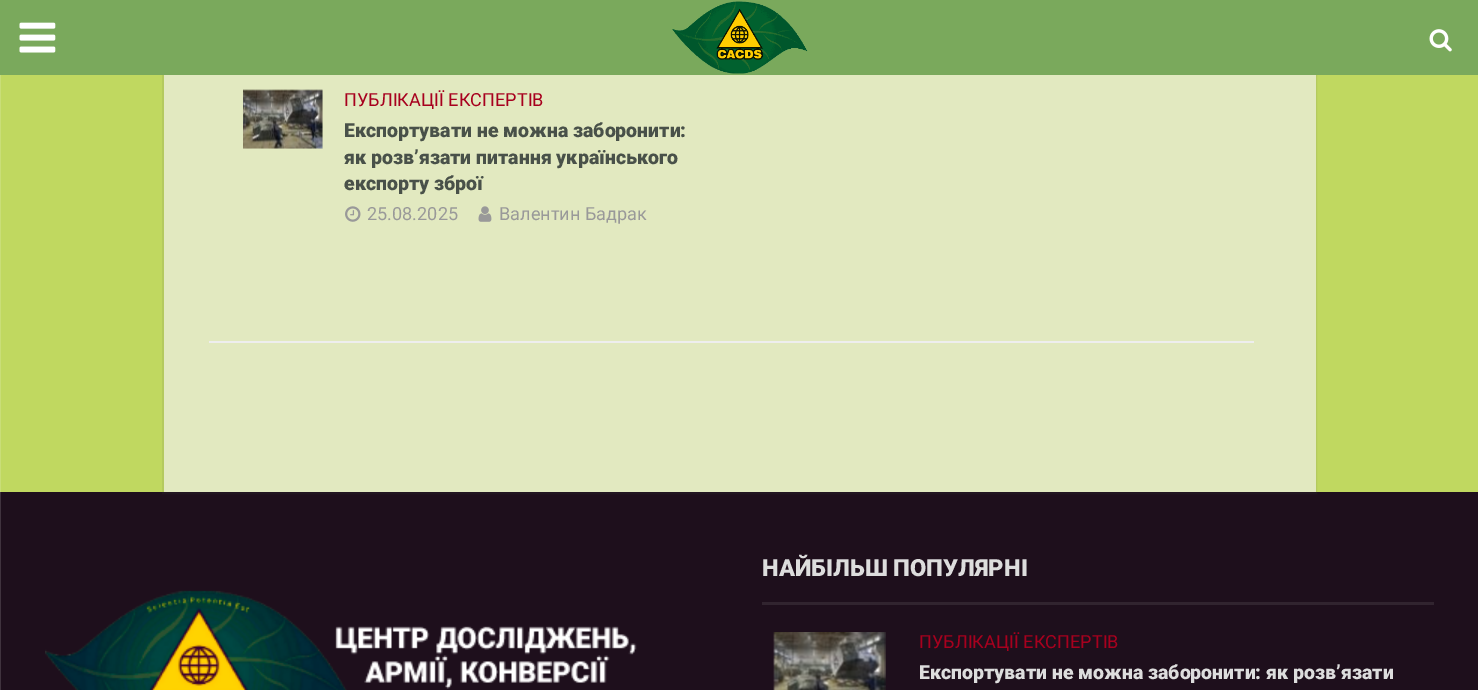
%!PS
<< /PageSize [1478 690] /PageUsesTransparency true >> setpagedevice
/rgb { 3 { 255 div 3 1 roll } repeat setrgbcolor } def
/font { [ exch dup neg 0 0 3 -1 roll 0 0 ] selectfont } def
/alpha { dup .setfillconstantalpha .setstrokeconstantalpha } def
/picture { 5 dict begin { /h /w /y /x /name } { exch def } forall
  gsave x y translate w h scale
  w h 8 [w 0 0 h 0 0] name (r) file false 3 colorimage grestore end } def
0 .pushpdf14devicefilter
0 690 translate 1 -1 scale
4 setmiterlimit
192 216 96 rgb
0 0 1478 690 rectfill
201 222 120 rgb
0 75 1 417 rectfill
30 15 28 rgb
1 492 1477 198 rectfill
0.1 alpha
73 81 73 rgb
2 setlinewidth
163 -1 1153 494 rectstroke
1 alpha
122 169 92 rgb
0 0 1478 75 rectfill
(img/1.rgb) 19 22 37 31 picture
(img/2.rgb) 672 1 136 73 picture
(img/3.rgb) 1429 29 23 23 picture
[
  [164 75 1152 417 226 233 192]
  [209 341 1045 2 238 238 238]
  [243 90 80 59 215 221 182]
] { aload pop rgb rectfill } forall
(img/4.rgb) 243 89 80 60 picture
(img/5.rgb) 345 206 16 16 picture
(img/6.rgb) 478 206 14 16 picture
64 51 62 rgb
0 492 1 198 rectfill
(img/7.rgb) 45 590 592 100 picture
49 36 47 rgb
762 602 672 3 rectfill
(img/8.rgb) 773 632 113 58 picture
/Roboto-Regular 18.1 font
167 0 30 rgb
344 106 moveto (ПУБЛІКАЦІЇ ЕКСПЕРТІВ) show
/Roboto-Black 19.5 font
73 81 73 rgb
[
  [(Експортувати не можна заборонити:) 344 137]
  [(як розв’язати питання українського) 344 164]
  [(експорту зброї) 344 190]
] { aload pop moveto show } forall
/Roboto-Regular 18.1 font
153 153 153 rgb
367 220 moveto (25.08.2025) show
499 220 moveto (Валентин Бадрак) show
/Roboto-Black 23.7 font
221 221 221 rgb
762 576 moveto (НАЙБІЛЬШ ПОПУЛЯРНІ) show
/Roboto-Regular 18.1 font
167 0 30 rgb
919 648 moveto (ПУБЛІКАЦІЇ ЕКСПЕРТІВ) show
/Roboto-Black 19.5 font
221 221 221 rgb
919 679 moveto (Експортувати не можна заборонити: як розв’язати) show
.poppdf14devicefilter showpage
